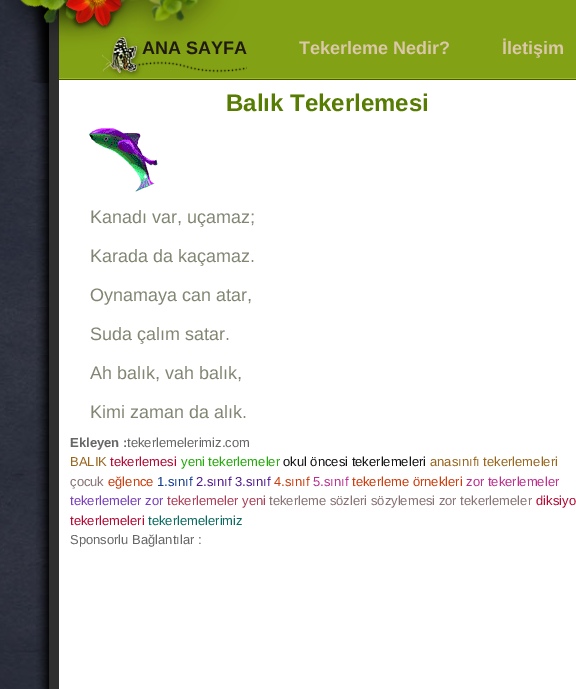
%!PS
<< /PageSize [576 689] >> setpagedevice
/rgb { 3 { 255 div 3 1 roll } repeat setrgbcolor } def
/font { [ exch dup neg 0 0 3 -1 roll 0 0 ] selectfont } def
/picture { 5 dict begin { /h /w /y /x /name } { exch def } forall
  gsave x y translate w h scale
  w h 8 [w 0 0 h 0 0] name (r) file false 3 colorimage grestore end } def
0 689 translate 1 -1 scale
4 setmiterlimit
255 255 255 rgb
0 0 576 689 rectfill
(img/1.rgb) 0 0 49 689 picture
(img/2.rgb) 5 0 571 83 picture
(img/3.rgb) 102 36 145 41 picture
(img/4.rgb) 36 83 540 606 picture
(img/5.rgb) 89 128 69 64 picture
/LiberationSans-Bold 18 font
31 25 16 rgb
142 54 moveto (ANA SAYFA) show
218 200 169 rgb
299 54 moveto (Tekerleme Nedir?) show
502 54 moveto (İletişim) show
/LiberationSans-Bold 24 font
86 124 2 rgb
226 111 moveto (Balık Tekerlemesi) show
/LiberationSans-Regular 18 font
128 134 114 rgb
[
  [(Kanadı var, uçamaz;) 90 223]
  [(Karada da kaçamaz.) 90 262]
  [(Oynamaya can atar,) 90 301]
  [(Suda çalım satar.) 90 340]
  [(Ah balık, vah balık,) 90 379]
  [(Kimi zaman da alık.) 90 418]
] { aload pop moveto show } forall
/LiberationSans-Bold 13 font
102 102 102 rgb
70 447 moveto (Ekleyen :) show
/LiberationSans-Regular 13 font
127 447 moveto (tekerlemelerimiz.com) show
153 101 29 rgb
70 466 moveto (BALIK) show
178 9 51 rgb
110 466 moveto (tekerlemesi) show
35 170 8 rgb
181 466 moveto (yeni tekerlemeler) show
20 19 19 rgb
283 466 moveto (okul öncesi tekerlemeleri) show
153 101 29 rgb
430 466 moveto (anasınıfı tekerlemeleri) show
135 114 117 rgb
70 486 moveto (çocuk) show
204 60 12 rgb
108 486 moveto (eğlence) show
21 61 142 rgb
157 486 moveto (1.sınıf) show
81 25 145 rgb
196 486 moveto (2.sınıf 3.sınıf) show
204 60 12 rgb
274 486 moveto (4.sınıf) show
188 47 143 rgb
313 486 moveto (5.sınıf) show
204 60 12 rgb
352 486 moveto (tekerleme örnekleri) show
188 47 143 rgb
466 486 moveto (zor tekerlemeler) show
120 63 186 rgb
70 505 moveto (tekerlemeler zor) show
170 63 90 rgb
167 505 moveto (tekerlemeler yeni) show
135 114 117 rgb
269 505 moveto (tekerleme sözleri sözylemesi zor tekerlemeler) show
178 9 51 rgb
536 505 moveto (diksiyo) show
70 525 moveto (tekerlemeleri) show
10 107 98 rgb
148 525 moveto (tekerlemelerimiz) show
102 102 102 rgb
70 544 moveto (Sponsorlu Bağlantılar :) show
showpage
